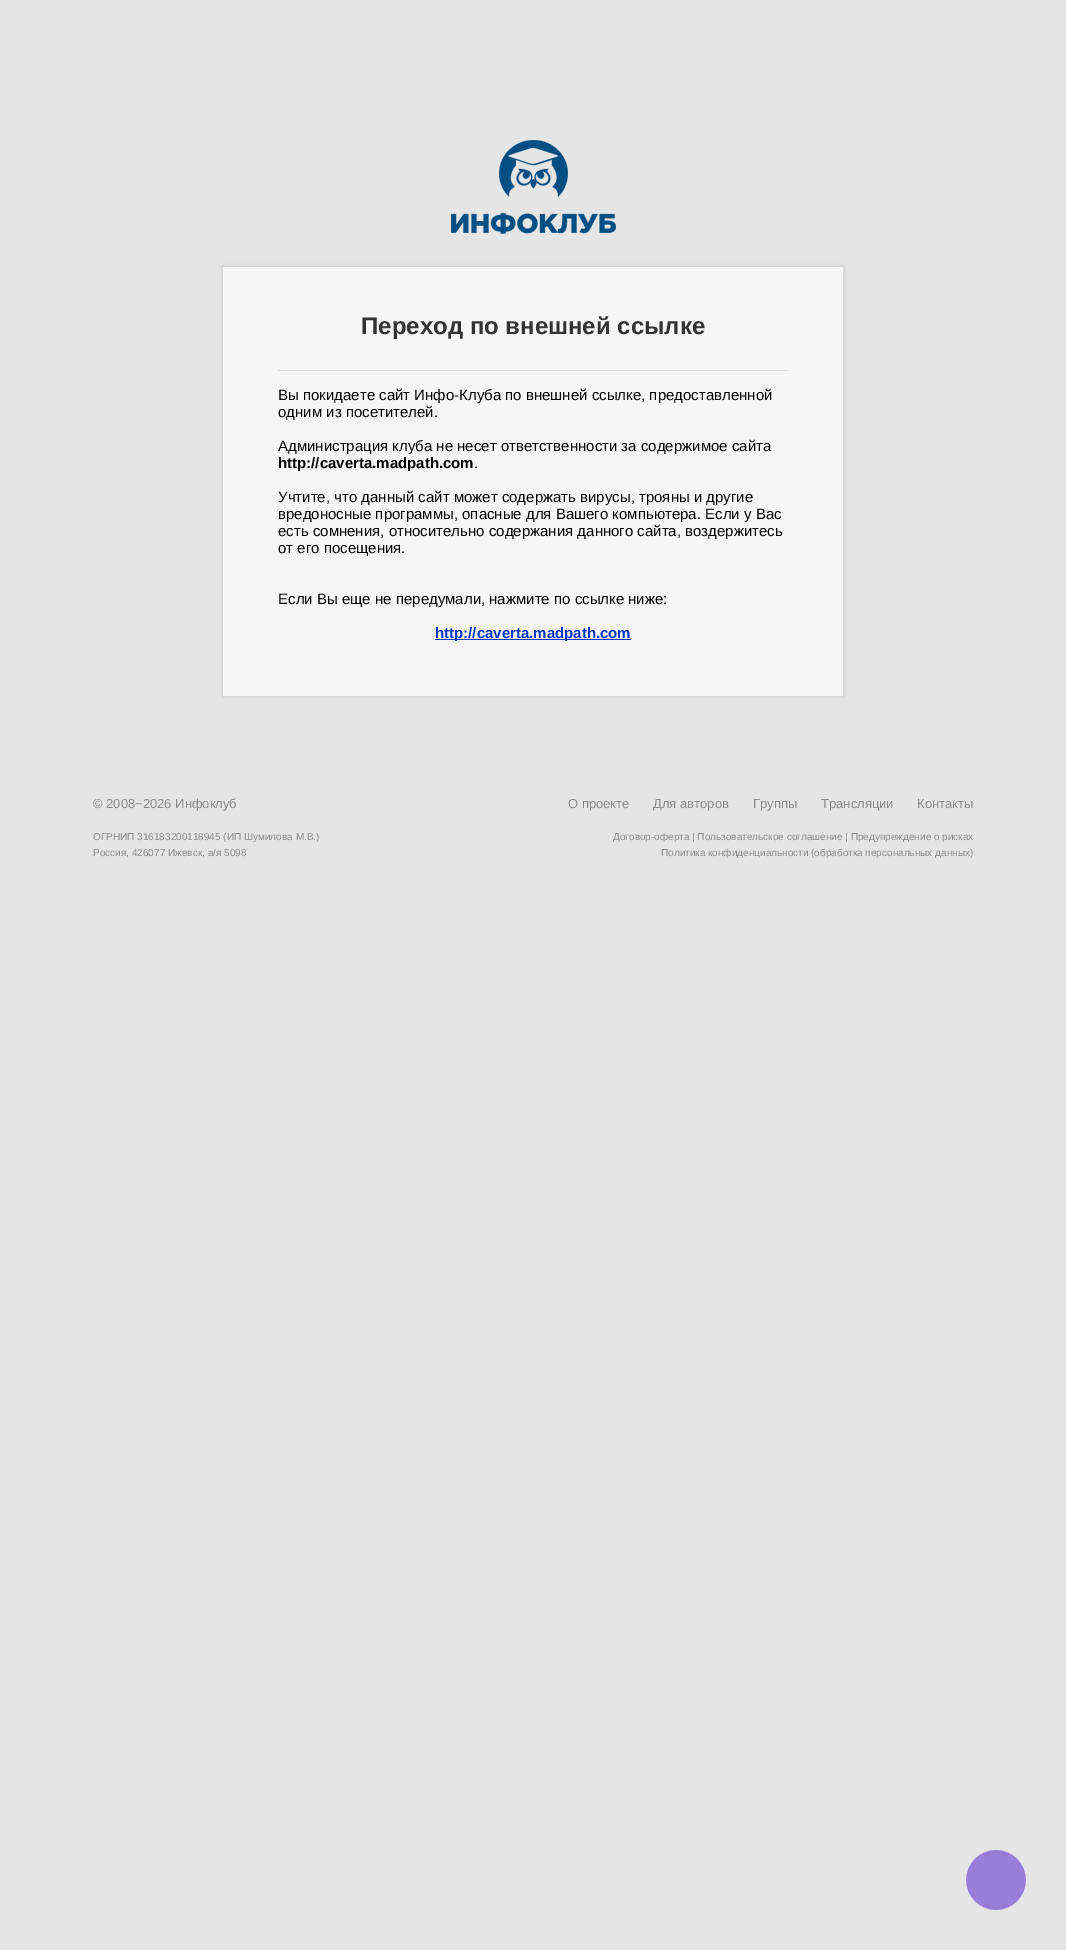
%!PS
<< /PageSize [1066 1950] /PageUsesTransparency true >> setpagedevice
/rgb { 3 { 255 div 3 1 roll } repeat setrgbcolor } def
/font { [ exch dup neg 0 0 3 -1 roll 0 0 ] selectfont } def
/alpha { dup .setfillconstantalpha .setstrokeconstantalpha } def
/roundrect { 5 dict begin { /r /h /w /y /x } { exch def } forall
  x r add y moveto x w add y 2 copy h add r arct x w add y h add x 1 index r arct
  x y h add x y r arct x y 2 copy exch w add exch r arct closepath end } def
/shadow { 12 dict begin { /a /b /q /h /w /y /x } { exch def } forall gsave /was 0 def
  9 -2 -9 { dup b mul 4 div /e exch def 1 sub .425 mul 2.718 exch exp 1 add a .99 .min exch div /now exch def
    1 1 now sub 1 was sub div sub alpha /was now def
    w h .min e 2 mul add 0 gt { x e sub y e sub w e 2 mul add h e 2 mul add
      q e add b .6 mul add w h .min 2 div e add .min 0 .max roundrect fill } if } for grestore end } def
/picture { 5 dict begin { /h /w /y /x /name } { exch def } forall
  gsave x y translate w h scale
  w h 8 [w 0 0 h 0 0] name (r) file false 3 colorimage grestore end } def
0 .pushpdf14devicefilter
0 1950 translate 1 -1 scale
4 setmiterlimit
229 229 229 rgb
0 0 1066 1950 rectfill
(img/1.rgb) 451 140 165 94 picture
0 0 0 rgb
222 266 622 431 0 1.5 0.1 shadow
[
  [223 267 620 429 246 246 246]
  [278 370 510 1 221 221 221]
  [435 639 196 1 0 51 204]
] { aload pop rgb rectfill } forall
(img/2.rgb) 966 1850 60 60 picture
/LiberationSans-Bold 24 font
51 51 51 rgb
361 334 moveto (Переход по внешней ссылке) show
/LiberationSans-Regular 15 font
0 0 0 rgb
[
  [(Вы покидаете сайт Инфо-Клуба по внешней ссылке, предоставленной) 278 400]
  [(одним из посетителей.) 278 417]
  [(Администрация клуба не несет ответственности за содержимое сайта) 278 451]
] { aload pop moveto show } forall
/LiberationSans-Bold 15 font
278 468 moveto (http://caverta.madpath.com) show
/LiberationSans-Regular 15 font
[
  [(.) 474 468]
  [(Учтите, что данный сайт может содержать вирусы, трояны и другие) 278 502]
  [(вредоносные программы, опасные для Вашего компьютера. Если у Вас) 278 519]
  [(есть сомнения, относительно содержания данного сайта, воздержитесь) 278 536]
  [(от его посещения.) 278 553]
  [(Если Вы еще не передумали, нажмите по ссылке ниже:) 278 604]
] { aload pop moveto show } forall
/LiberationSans-Bold 15 font
0 51 204 rgb
435 638 moveto (http://caverta.madpath.com) show
/LiberationSans-Regular 13 font
137 137 137 rgb
[
  [(© 2008−2026 Инфоклуб) 93 808]
  [(О проекте) 568 808]
  [(Для авторов) 653 808]
  [(Группы) 753 808]
  [(Трансляции) 821 808]
  [(Контакты) 917 808]
] { aload pop moveto show } forall
/LiberationSans-Regular 10 font
[
  [(ОГРНИП 316183200118945 \(ИП Шумилова М.В.\)) 93 840]
  [(Россия, 426077 Ижевск, а/я 5098) 93 856]
  [(Договор-оферта | Пользовательское соглашение | Предупреждение о рисках) 613 840]
  [(Политика конфиденциальности \(обработка персональных данных\)) 661 856]
] { aload pop moveto show } forall
.poppdf14devicefilter showpage
